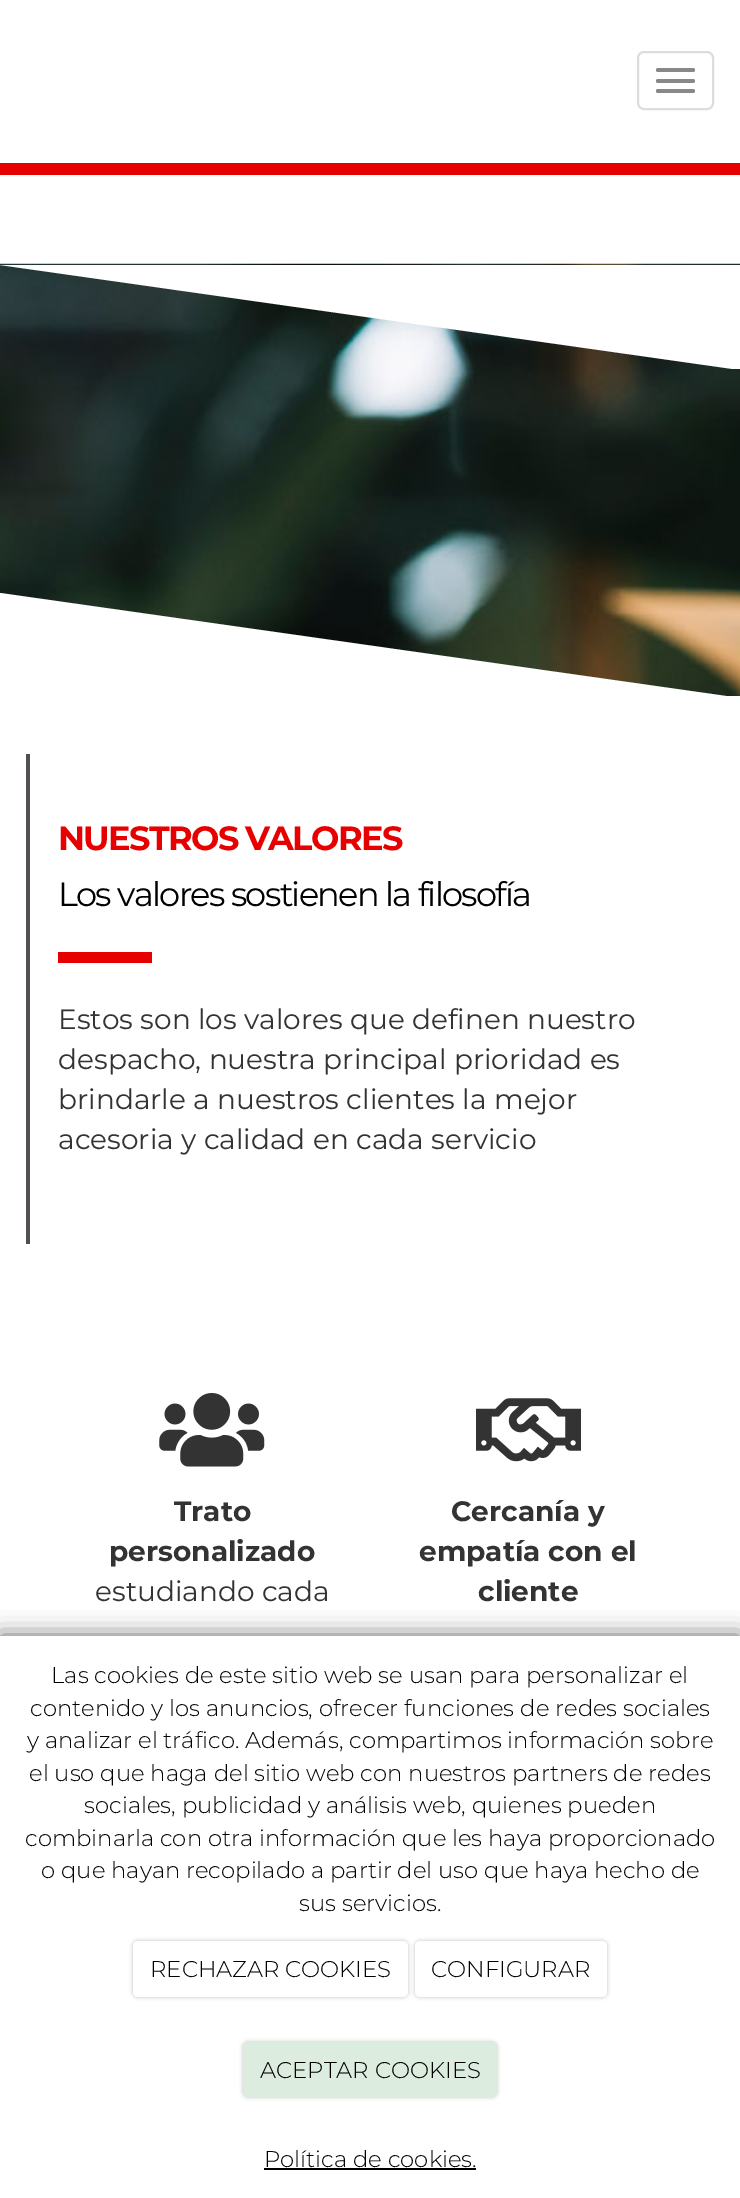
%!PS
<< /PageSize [740 2198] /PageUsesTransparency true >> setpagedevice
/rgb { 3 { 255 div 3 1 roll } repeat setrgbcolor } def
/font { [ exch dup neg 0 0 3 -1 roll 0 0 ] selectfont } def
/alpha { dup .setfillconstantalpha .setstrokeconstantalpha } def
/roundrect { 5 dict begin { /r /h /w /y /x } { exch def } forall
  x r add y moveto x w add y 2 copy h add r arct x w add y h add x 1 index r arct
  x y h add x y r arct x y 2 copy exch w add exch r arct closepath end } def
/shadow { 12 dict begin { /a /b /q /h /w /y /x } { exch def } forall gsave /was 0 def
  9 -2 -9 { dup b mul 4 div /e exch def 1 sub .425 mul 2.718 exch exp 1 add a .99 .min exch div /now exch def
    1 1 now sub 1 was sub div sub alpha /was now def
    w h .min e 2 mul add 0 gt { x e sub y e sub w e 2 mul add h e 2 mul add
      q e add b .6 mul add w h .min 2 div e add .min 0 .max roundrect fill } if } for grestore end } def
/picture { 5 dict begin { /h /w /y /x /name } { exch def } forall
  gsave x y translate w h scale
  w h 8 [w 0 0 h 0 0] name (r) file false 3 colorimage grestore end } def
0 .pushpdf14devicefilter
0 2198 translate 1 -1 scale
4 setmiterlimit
255 255 255 rgb
0 0 740 2198 rectfill
231 0 0 rgb
0 163 740 12 rectfill
221 221 221 rgb
2 setlinewidth
638 52 75 57 6 roundrect stroke
136 136 136 rgb
656 68 39 4 2 roundrect fill
656 79 39 4 2 roundrect fill
656 89 39 4 2 roundrect fill
(img/1.rgb) 0 263 740 433 picture
gsave
0 264 740 105 rectclip
255 255 255 rgb
740 370 moveto 740 265 lineto 0 265 lineto closepath fill
grestore
255 255 255 rgb
0 593 moveto 0 698 lineto 740 698 lineto closepath fill
83 79 79 rgb
26 754 4 490 rectfill
231 0 0 rgb
58 952 94 11 rectfill
(img/2.rgb) 159 1393 106 74 picture
(img/3.rgb) 476 1398 105 64 picture
0 0 0 rgb
0 1636 740 562 0 11.5 0.6 shadow
255 255 255 rgb
0 1636 740 562 rectfill
0 0 0 rgb
133 1941 275 56 5 2 0.25 shadow
255 255 255 rgb
133 1941 275 56 5 roundrect fill
0 0 0 rgb
415 1941 192 56 5 2 0.25 shadow
255 255 255 rgb
415 1941 192 56 5 roundrect fill
0 0 0 rgb
243 2042 254 55 5 2 0.25 shadow
220 236 223 rgb
243 2042 254 55 5 roundrect fill
0 0 0 rgb
264 2168 212 2 rectfill
/Montserrat-Bold 33.6 font
231 0 0 rgb
58 850 moveto -1.7 0 (NUESTROS VALORES) ashow
/Montserrat-Regular 33.6 font
0 0 0 rgb
58 906 moveto -1.7 0 (Los valores sostienen la filosofía) ashow
/Montserrat-Regular 28 font
51 51 51 rgb
[
  [(Estos son los valores que definen nuestro) 58 1029]
  [(despacho, nuestra principal prioridad es) 58 1069]
  [(brindarle a nuestros clientes la mejor) 58 1109]
  [(acesoria y calidad en cada servicio) 58 1149]
] { aload pop moveto show } forall
/Montserrat-Bold 28 font
174 1521 moveto (Trato) show
109 1561 moveto (personalizado) show
/Montserrat-Regular 28 font
95 1601 moveto (estudiando cada) show
/Montserrat-Bold 28 font
[
  [(Cercanía y) 451 1521]
  [(empatía con el) 419 1561]
  [(cliente) 478 1601]
] { aload pop moveto show } forall
/Montserrat-Light 22.75 font
0 0 0 rgb
[
  [(Las cookies de este sitio web se usan para personalizar el) 51 1683]
  [(contenido y los anuncios, ofrecer funciones de redes sociales) 30 1716]
  [(y analizar el tráfico. Además, compartimos información sobre) 27 1748]
  [(el uso que haga del sitio web con nuestros partners de redes) 29 1781]
  [(sociales, publicidad y análisis web, quienes pueden) 84 1813]
  [(combinarla con otra información que les haya proporcionado) 25 1846]
  [(o que hayan recopilado a partir del uso que haya hecho de) 41 1878]
  [(sus servicios.) 299 1911]
  [(RECHAZAR COOKIES) 150 1977]
  [(CONFIGURAR) 431 1977]
  [(ACEPTAR COOKIES) 260 2078]
  [(Política de cookies.) 264 2167]
] { aload pop moveto show } forall
.poppdf14devicefilter showpage
